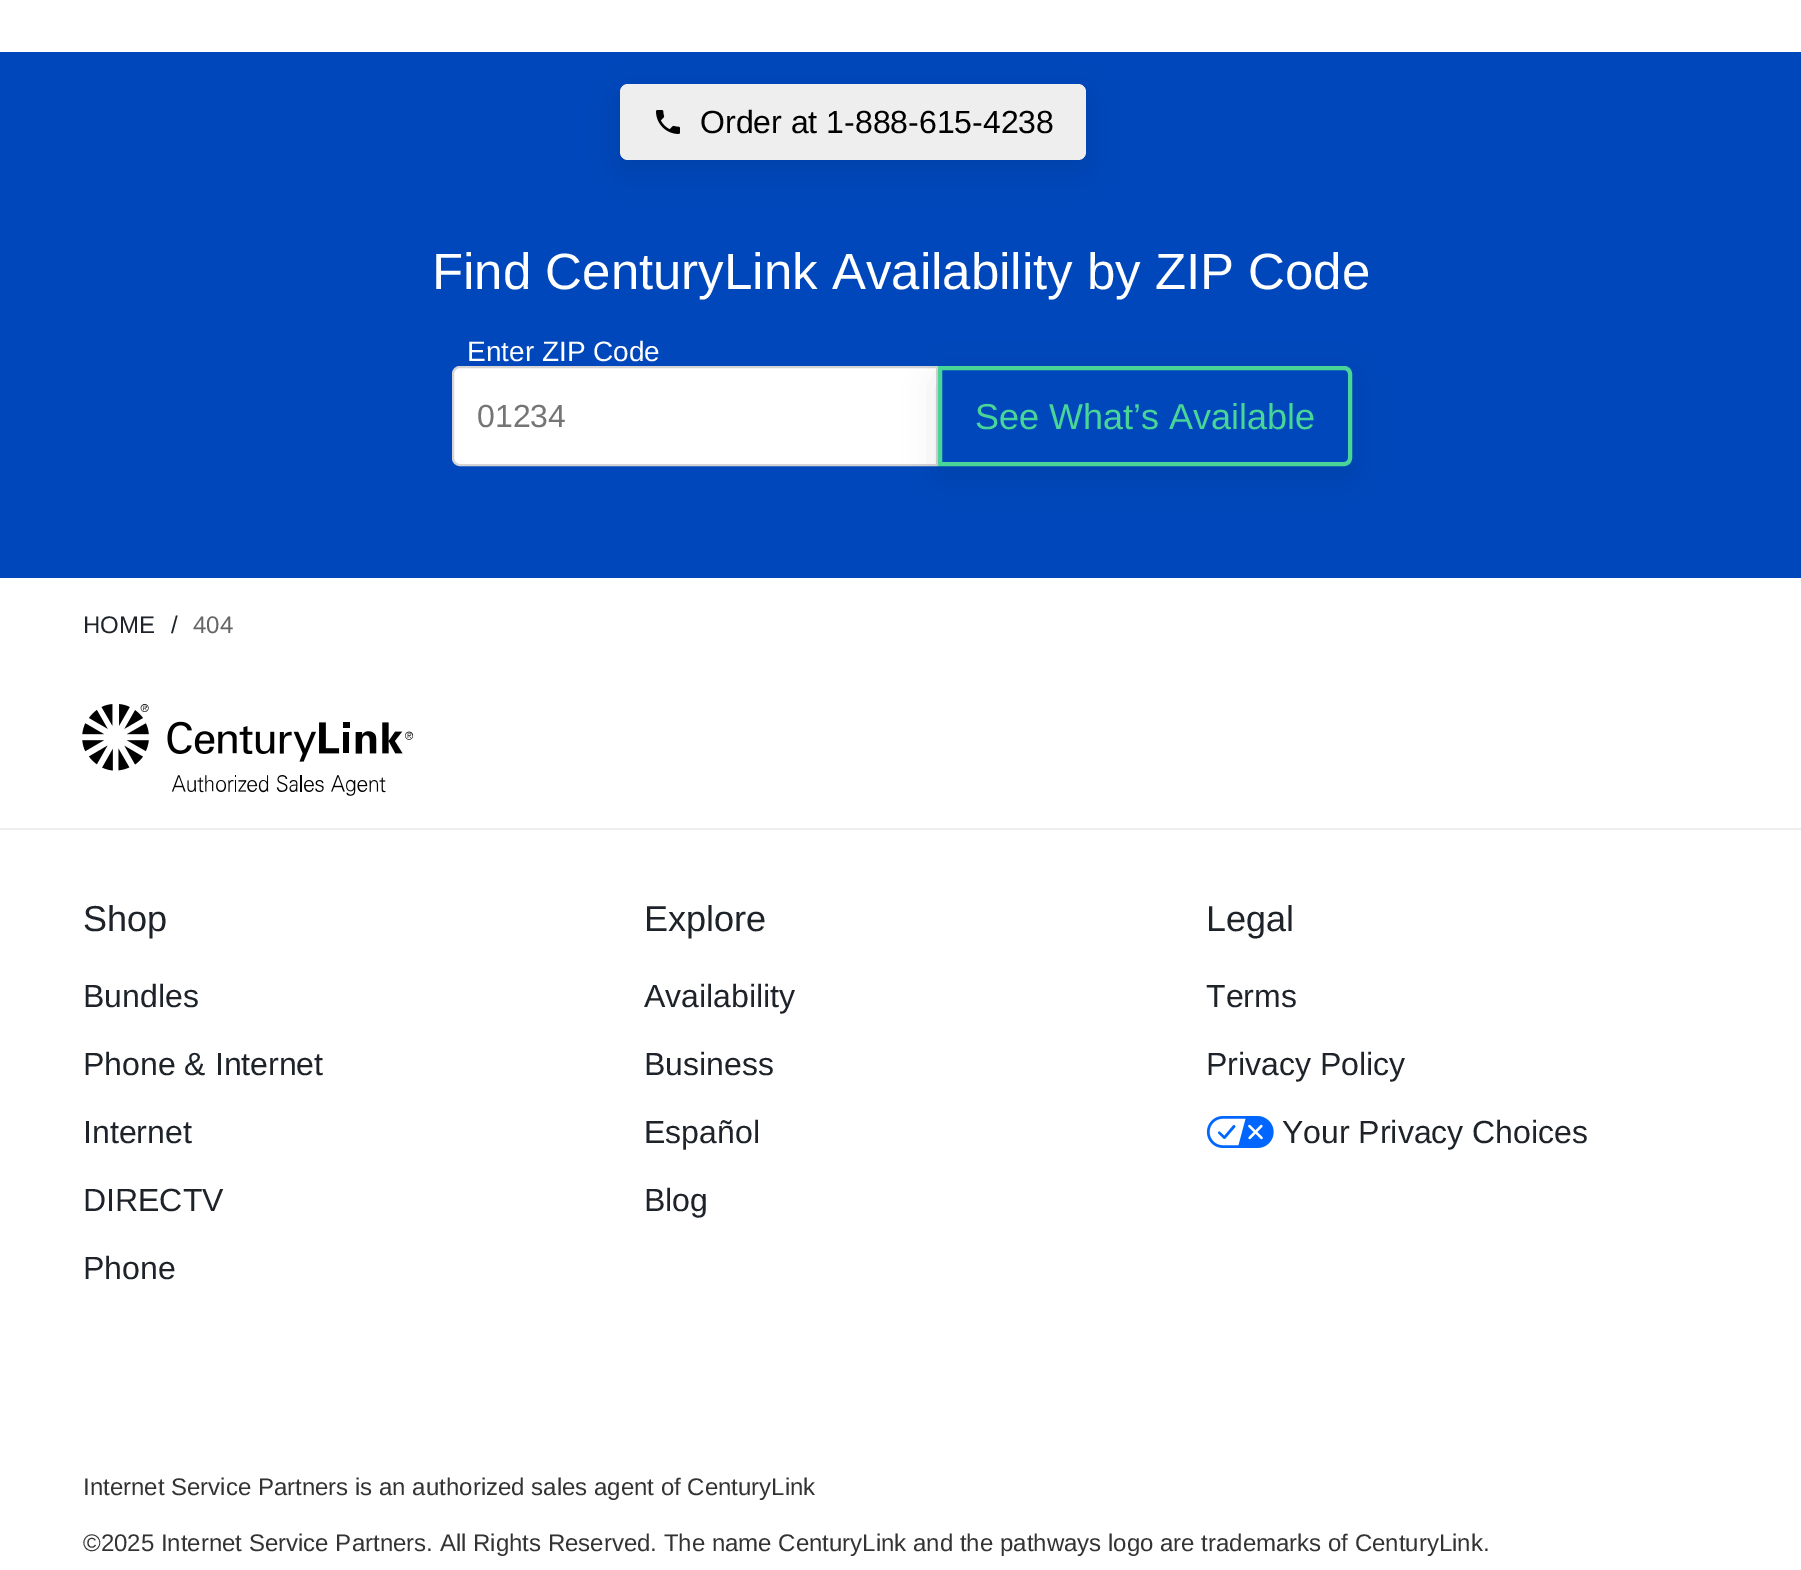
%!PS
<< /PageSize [1801 1570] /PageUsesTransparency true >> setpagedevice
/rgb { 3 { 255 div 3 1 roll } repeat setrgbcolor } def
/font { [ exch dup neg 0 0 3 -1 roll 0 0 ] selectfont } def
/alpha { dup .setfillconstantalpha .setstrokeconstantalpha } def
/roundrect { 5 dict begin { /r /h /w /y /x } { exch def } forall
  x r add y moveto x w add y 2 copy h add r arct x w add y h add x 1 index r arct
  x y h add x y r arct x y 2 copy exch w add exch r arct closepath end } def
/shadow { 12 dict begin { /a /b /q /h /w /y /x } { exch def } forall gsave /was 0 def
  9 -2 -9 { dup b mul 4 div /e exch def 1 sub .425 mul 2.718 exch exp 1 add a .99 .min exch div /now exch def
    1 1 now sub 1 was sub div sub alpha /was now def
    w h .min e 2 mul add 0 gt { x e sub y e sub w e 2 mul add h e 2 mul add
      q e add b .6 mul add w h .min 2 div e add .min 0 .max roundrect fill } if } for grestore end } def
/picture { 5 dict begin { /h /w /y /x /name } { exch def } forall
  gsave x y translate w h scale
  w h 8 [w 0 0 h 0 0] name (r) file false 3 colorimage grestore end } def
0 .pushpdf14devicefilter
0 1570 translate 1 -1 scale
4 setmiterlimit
255 255 255 rgb
0 0 1801 1570 rectfill
0 71 187 rgb
0 52 1801 526 rectfill
0 0 0 rgb
620 94 466 76 8 16 0.1 shadow
238 238 238 rgb
620 84 466 76 8 roundrect fill
(img/1.rgb) 656 110 24 24 picture
255 255 255 rgb
460 367 moveto 937 367 lineto 937 465 lineto 460 465 lineto 456 465 453 462 453 458 curveto 453 374 lineto 453 370 456 367 460 367 curveto closepath gsave fill grestore
213 213 213 rgb
2 setlinewidth
stroke
gsave
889 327 moveto 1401 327 lineto 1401 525 lineto 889 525 lineto closepath 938 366 moveto 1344 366 lineto 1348.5 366 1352 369.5 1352 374 curveto 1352 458 lineto 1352 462.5 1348.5 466 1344 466 curveto 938 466 lineto closepath eoclip newpath
0 0 0 rgb
938 376 414 100 8 16 0.1 shadow
grestore
72 213 151 rgb
4 setlinewidth
940 368 moveto 1344 368 lineto 1347.5 368 1350 370.5 1350 374 curveto 1350 458 lineto 1350 461.5 1347.5 464 1344 464 curveto 940 464 lineto closepath stroke
238 238 238 rgb
0 828 1801 2 rectfill
(img/2.rgb) 82 704 332 92 picture
(img/3.rgb) 1206 1116 68 32 picture
/LiberationSans-Regular 32 font
0 0 0 rgb
700 133 moveto (Order at 1-888-615-4238) show
/LiberationSans-Regular 51 font
255 255 255 rgb
432 289 moveto (Find CenturyLink Availability by ZIP Code) show
/LiberationSans-Regular 28 font
467 361 moveto (Enter ZIP Code) show
/LiberationSans-Regular 32 font
117 117 117 rgb
477 427 moveto (01234) show
/LiberationSans-Regular 36 font
72 213 151 rgb
975 429 moveto (See What’s Available) show
/LiberationSans-Regular 24 font
29 35 41 rgb
83 633 moveto (HOME) show
171 633 moveto (/) show
102 102 102 rgb
193 633 moveto (404) show
/LiberationSans-Regular 36 font
29 35 41 rgb
83 931 moveto (Shop) show
/LiberationSans-Regular 32 font
[
  [(Bundles) 83 1007]
  [(Phone & Internet) 83 1075]
  [(Internet) 83 1143]
  [(DIRECTV) 83 1211]
  [(Phone) 83 1279]
] { aload pop moveto show } forall
/LiberationSans-Regular 36 font
644 931 moveto (Explore) show
/LiberationSans-Regular 32 font
[
  [(Availability) 644 1007]
  [(Business) 644 1075]
  [(Español) 644 1143]
  [(Blog) 644 1211]
] { aload pop moveto show } forall
/LiberationSans-Regular 36 font
1206 931 moveto (Legal) show
/LiberationSans-Regular 32 font
[
  [(Terms) 1206 1007]
  [(Privacy Policy) 1206 1075]
  [(Your Privacy Choices) 1282 1143]
] { aload pop moveto show } forall
/LiberationSans-Regular 24 font
51 51 51 rgb
83 1495 moveto (Internet Service Partners is an authorized sales agent of CenturyLink) show
83 1551 moveto (©2025 Internet Service Partners. All Rights Reserved. The name CenturyLink and the pathways logo are trademarks of CenturyLink.) show
.poppdf14devicefilter showpage
